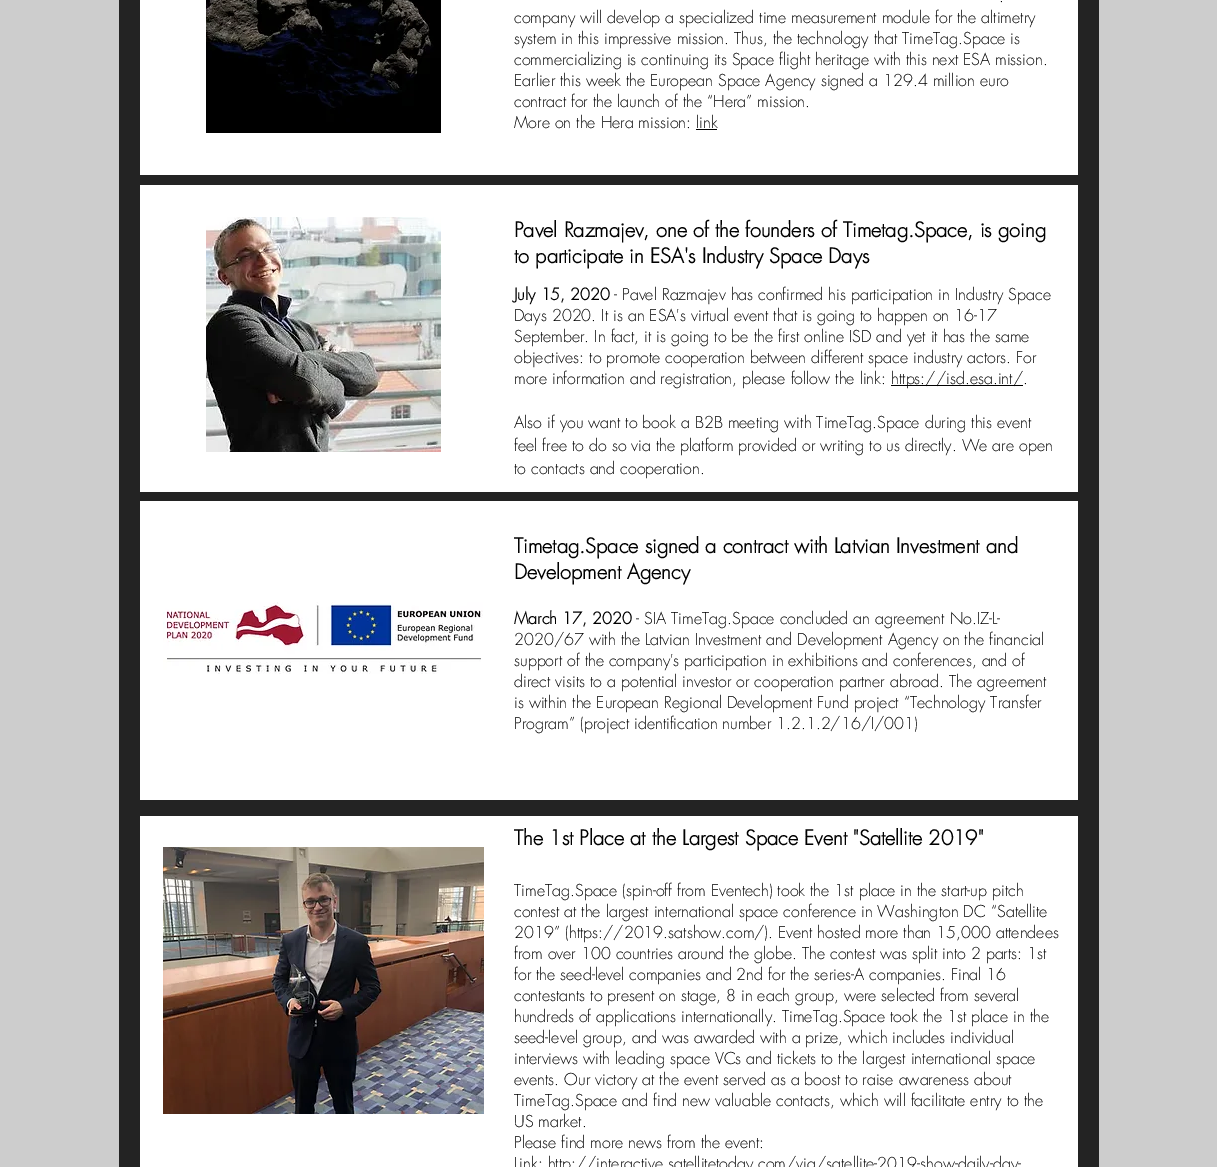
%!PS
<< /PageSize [1217 1167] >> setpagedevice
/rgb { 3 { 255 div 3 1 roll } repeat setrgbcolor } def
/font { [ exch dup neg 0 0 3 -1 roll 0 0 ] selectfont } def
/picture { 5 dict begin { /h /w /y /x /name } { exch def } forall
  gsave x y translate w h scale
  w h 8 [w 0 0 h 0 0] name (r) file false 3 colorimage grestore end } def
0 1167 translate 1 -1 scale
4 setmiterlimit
205 205 205 rgb
0 0 1217 1167 rectfill
35 35 35 rgb
119 0 980 1167 rectfill
255 255 255 rgb
140 0 938 175 rectfill
(img/1.rgb) 206 0 235 133 picture
0 0 0 rgb
696 129 21 1 rectfill
255 255 255 rgb
140 185 938 307 rectfill
(img/2.rgb) 206 217 235 235 picture
0 0 0 rgb
891 385 132 1 rectfill
255 255 255 rgb
140 501 938 299 rectfill
(img/3.rgb) 163 602 320 72 picture
140 816 938 351 rectfill
(img/4.rgb) 163 847 321 267 picture
/futura-Light 16 font
0 0 0 rgb
[
  [(.) 999 2]
  [(company will develop a specialized time measurement module for the altimetry) 514 23]
  [(system in this impressive mission. Thus, the technology that TimeTag.Space is) 514 44]
  [(commercializing is continuing its Space flight heritage with this next ESA mission.) 514 65]
  [(Earlier this week the European Space Agency signed a 129.4 million euro) 514 86]
  [(contract for the launch of the “Hera” mission.) 514 107]
  [(More on the Hera mission: link) 514 128]
] { aload pop moveto show } forall
/futura-Bold 20 font
514 237 moveto (Pavel Razmajev, one of the founders of Timetag.Space, is going) show
514 263 moveto (to participate in ESA's Industry Space Days) show
/futura-Bold 16 font
514 300 moveto (July 15, 2020) show
/futura-Light 16 font
[
  [(- Pavel Razmajev has confirmed his participation in Industry Space) 614 300]
  [(Days 2020. It is an ESA's virtual event that is going to happen on 16-17) 514 321]
  [(September. In fact, it is going to be the first online ISD and yet it has the same) 514 342]
  [(objectives: to promote cooperation between different space industry actors. For) 514 363]
  [(more information and registration, please follow the link:) 514 384]
  [(https://isd.esa.int/.) 891 384]
  [(Also if you want to book a B2B meeting with TimeTag.Space during this event) 514 428]
  [(feel free to do so via the platform provided or writing to us directly. We are open) 514 451]
  [(to contacts and cooperation.) 514 474]
] { aload pop moveto show } forall
/futura-Bold 20 font
514 553 moveto (Timetag.Space signed a contract with Latvian Investment and) show
514 579 moveto (Development Agency) show
/futura-Bold 16 font
514 624 moveto (March 17, 2020) show
/futura-Light 16 font
[
  [(- SIA TimeTag.Space concluded an agreement No.IZ-L-) 636 624]
  [(2020/67 with the Latvian Investment and Development Agency on the financial) 514 645]
  [(support of the company's participation in exhibitions and conferences, and of) 514 666]
  [(direct visits to a potential investor or cooperation partner abroad. The agreement) 514 687]
  [(is within the European Regional Development Fund project “Technology Transfer) 514 708]
  [(Program” \(project identification number 1.2.1.2/16/I/001\)) 514 729]
] { aload pop moveto show } forall
/futura-Bold 20 font
514 845 moveto (The 1st Place at the Largest Space Event "Satellite 2019") show
/futura-Light 16 font
[
  [(TimeTag.Space \(spin-off from Eventech\) took the 1st place in the start-up pitch) 514 896]
  [(contest at the largest international space conference in Washington DC “Satellite) 514 917]
  [(2019” \(https://2019.satshow.com/\). Event hosted more than 15,000 attendees) 514 938]
  [(from over 100 countries around the globe. The contest was split into 2 parts: 1st) 514 959]
  [(for the seed-level companies and 2nd for the series-A companies. Final 16) 514 980]
  [(contestants to present on stage, 8 in each group, were selected from several) 514 1001]
  [(hundreds of applications internationally. TimeTag.Space took the 1st place in the) 514 1022]
  [(seed-level group, and was awarded with a prize, which includes individual) 514 1043]
  [(interviews with leading space VCs and tickets to the largest international space) 514 1064]
  [(events. Our victory at the event served as a boost to raise awareness about) 514 1085]
  [(TimeTag.Space and find new valuable contacts, which will facilitate entry to the) 514 1106]
  [(US market.) 514 1127]
  [(Please find more news from the event:) 514 1148]
  [(Link: http://interactive.satellitetoday.com/via/satellite-2019-show-daily-day-) 514 1169]
] { aload pop moveto show } forall
showpage
